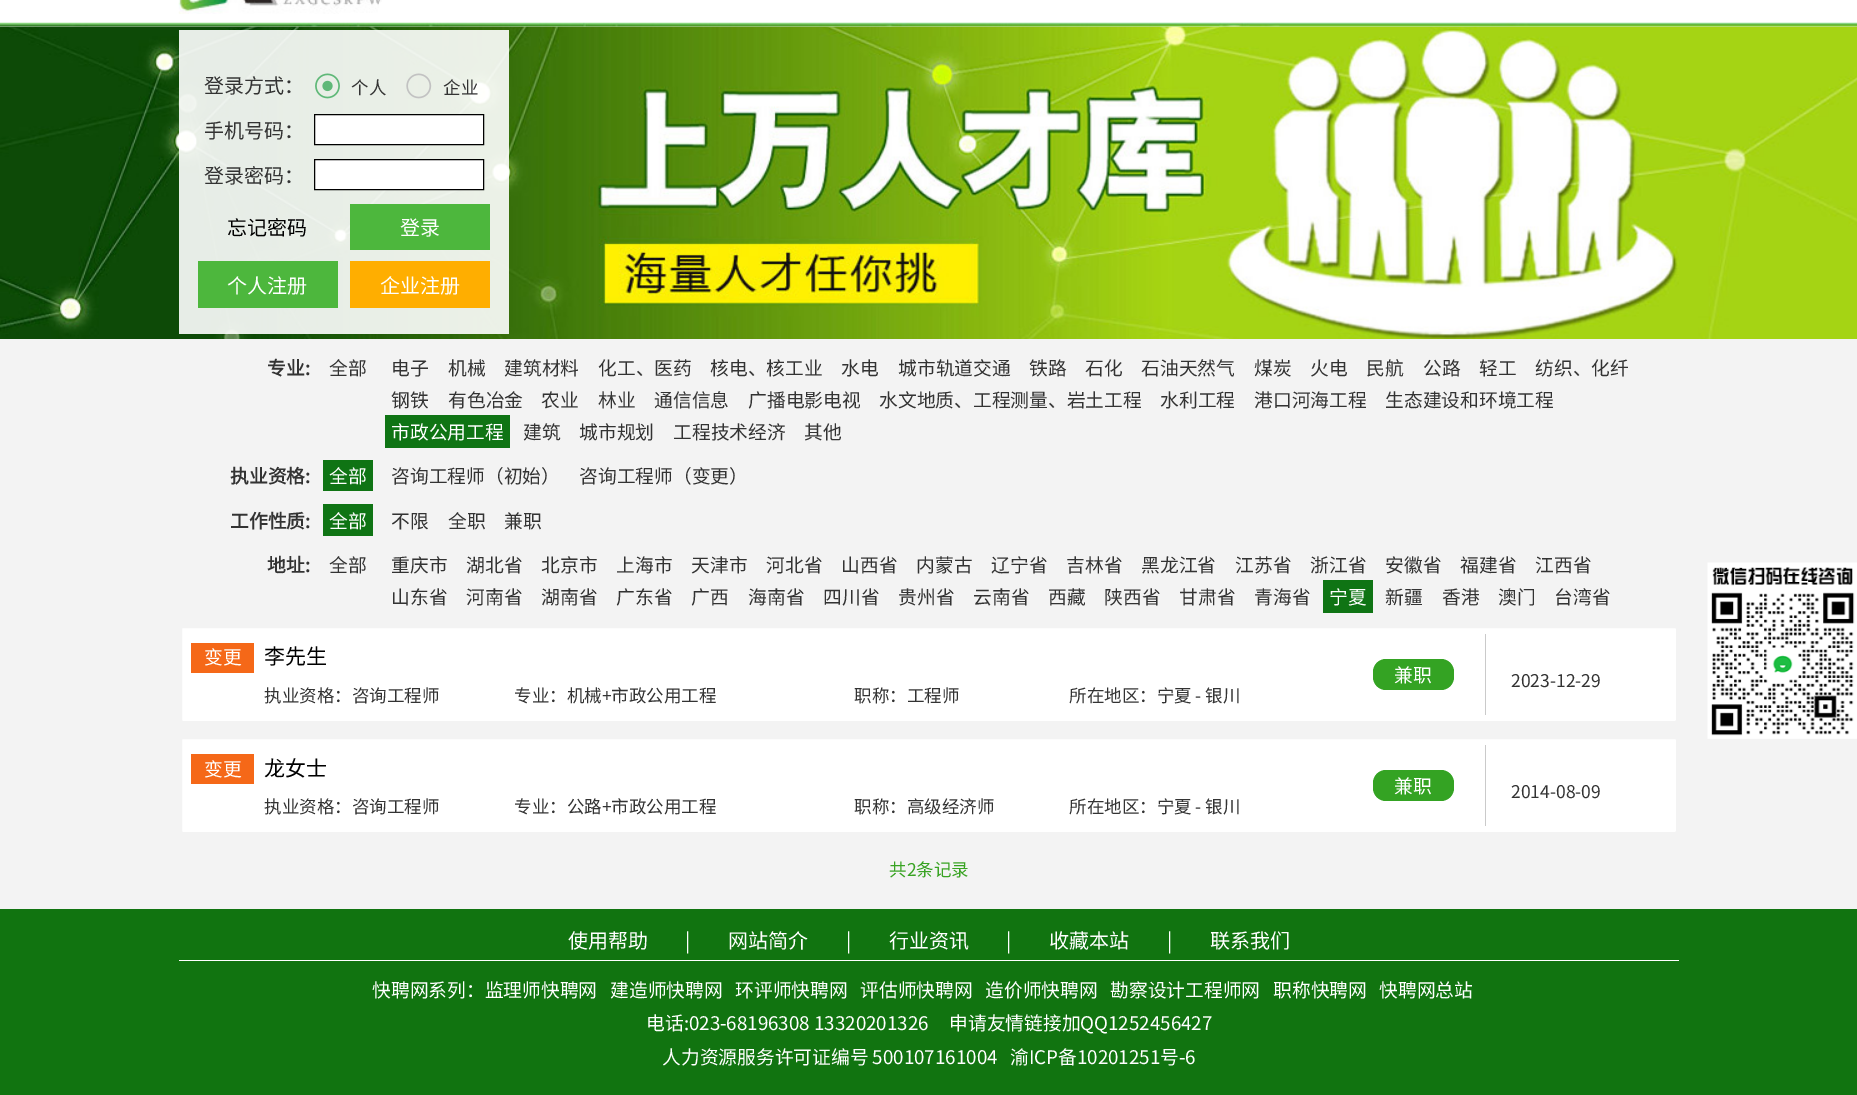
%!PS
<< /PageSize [1857 1095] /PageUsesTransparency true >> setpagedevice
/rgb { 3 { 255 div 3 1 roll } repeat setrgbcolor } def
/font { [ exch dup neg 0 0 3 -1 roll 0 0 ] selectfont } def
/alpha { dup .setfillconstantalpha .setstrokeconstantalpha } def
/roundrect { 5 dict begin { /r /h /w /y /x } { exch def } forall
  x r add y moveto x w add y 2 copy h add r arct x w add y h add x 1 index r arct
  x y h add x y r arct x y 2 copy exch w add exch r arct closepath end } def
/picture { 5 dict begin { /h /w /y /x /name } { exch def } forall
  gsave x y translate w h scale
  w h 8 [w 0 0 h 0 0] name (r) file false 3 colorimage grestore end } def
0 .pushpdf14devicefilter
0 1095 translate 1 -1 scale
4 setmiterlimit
243 243 243 rgb
0 0 1857 1095 rectfill
255 255 255 rgb
0 0 1857 23 rectfill
(img/1.rgb) 0 22 1857 5 picture
(img/2.rgb) 178 0 204 14 picture
(img/3.rgb) 0 26 1857 313 picture
0.9 alpha
179 30 330 304 rectfill
1 alpha
(img/4.rgb) 315 73 25 26 picture
(img/5.rgb) 406 73 26 26 picture
314.5 114.5 moveto 483.5 114.5 lineto 483.5 144.5 lineto 314.5 144.5 lineto closepath gsave fill grestore
0 0 0 rgb
stroke
255 255 255 rgb
314.5 159.5 moveto 483.5 159.5 lineto 483.5 189.5 lineto 314.5 189.5 lineto closepath gsave fill grestore
0 0 0 rgb
stroke
[
  [350 204 140 46 77 183 61]
  [198 261 140 47 77 183 61]
  [350 261 140 47 255 174 0]
  [385 415 125 33 15 116 20]
  [323 460 50 31 15 116 20]
  [323 504 50 32 15 116 20]
  [1323 580 50 33 15 116 20]
] { aload pop rgb rectfill } forall
255 255 255 rgb
180.5 626.5 1497 96 2.5 roundrect gsave fill grestore
243 243 243 rgb
3 setlinewidth
stroke
245 104 24 rgb
191 643 63 30 rectfill
202 202 202 rgb
1485 634 1 81 rectfill
52 163 35 rgb
1373 659 81 31 13 roundrect fill
255 255 255 rgb
180.5 737.5 1497 96 2.5 roundrect gsave fill grestore
243 243 243 rgb
stroke
245 104 24 rgb
191 754 63 30 rectfill
202 202 202 rgb
1485 745 1 81 rectfill
52 163 35 rgb
1373 770 81 31 13 roundrect fill
(img/6.rgb) 1707 562 150 177 picture
17 116 16 rgb
0 909 1857 186 rectfill
255 255 255 rgb
179 960 1500 1 rectfill
/NotoSansCJKSC-Regular 20 font
51 51 51 rgb
204 93 moveto (登录方式：) show
/NotoSansCJKSC-Regular 17.5 font
351 94 moveto (个人) show
443 94 moveto (企业) show
/NotoSansCJKSC-Regular 20 font
204 138 moveto (手机号码：) show
204 183 moveto (登录密码：) show
0 0 0 rgb
227 235 moveto (忘记密码) show
255 255 255 rgb
[
  [(登录) 400 235]
  [(个人注册) 227 293]
  [(企业注册) 380 293]
] { aload pop moveto show } forall
/NotoSansCJKSC-Bold 18.75 font
51 51 51 rgb
267 375 moveto (专业:) show
/NotoSansCJKSC-Regular 18.75 font
[
  [(全部) 329 375]
  [(电子) 391 375]
  [(机械) 448 375]
  [(建筑材料) 504 375]
  [(化工、医药) 598 375]
  [(核电、核工业) 710 375]
  [(水电) 841 375]
  [(城市轨道交通) 898 375]
  [(铁路) 1029 375]
  [(石化) 1085 375]
  [(石油天然气) 1141 375]
  [(煤炭) 1254 375]
  [(火电) 1310 375]
  [(民航) 1366 375]
  [(公路) 1423 375]
  [(轻工) 1479 375]
  [(纺织、化纤) 1535 375]
  [(钢铁) 391 407]
  [(有色冶金) 448 407]
  [(农业) 541 407]
  [(林业) 598 407]
  [(通信信息) 654 407]
  [(广播电影电视) 748 407]
  [(水文地质、工程测量、岩土工程) 879 407]
  [(水利工程) 1160 407]
  [(港口河海工程) 1254 407]
  [(生态建设和环境工程) 1385 407]
] { aload pop moveto show } forall
255 255 255 rgb
391 439 moveto (市政公用工程) show
51 51 51 rgb
[
  [(建筑) 523 439]
  [(城市规划) 579 439]
  [(工程技术经济) 673 439]
  [(其他) 804 439]
] { aload pop moveto show } forall
/NotoSansCJKSC-Bold 18.75 font
230 483 moveto (执业资格:) show
/NotoSansCJKSC-Regular 18.75 font
255 255 255 rgb
329 483 moveto (全部) show
51 51 51 rgb
391 483 moveto (咨询工程师（初始）) show
579 483 moveto (咨询工程师（变更）) show
/NotoSansCJKSC-Bold 18.75 font
230 528 moveto (工作性质:) show
/NotoSansCJKSC-Regular 18.75 font
255 255 255 rgb
329 528 moveto (全部) show
51 51 51 rgb
[
  [(不限) 391 528]
  [(全职) 448 528]
  [(兼职) 504 528]
] { aload pop moveto show } forall
/NotoSansCJKSC-Bold 18.75 font
267 572 moveto (地址:) show
/NotoSansCJKSC-Regular 18.75 font
[
  [(全部) 329 572]
  [(重庆市) 391 572]
  [(湖北省) 466 572]
  [(北京市) 541 572]
  [(上海市) 616 572]
  [(天津市) 691 572]
  [(河北省) 766 572]
  [(山西省) 841 572]
  [(内蒙古) 916 572]
  [(辽宁省) 991 572]
  [(吉林省) 1066 572]
  [(黑龙江省) 1141 572]
  [(江苏省) 1235 572]
  [(浙江省) 1310 572]
  [(安徽省) 1385 572]
  [(福建省) 1460 572]
  [(江西省) 1535 572]
  [(山东省) 391 604]
  [(河南省) 466 604]
  [(湖南省) 541 604]
  [(广东省) 616 604]
  [(广西) 691 604]
  [(海南省) 748 604]
  [(四川省) 823 604]
  [(贵州省) 898 604]
  [(云南省) 973 604]
  [(西藏) 1048 604]
  [(陕西省) 1104 604]
  [(甘肃省) 1179 604]
  [(青海省) 1254 604]
] { aload pop moveto show } forall
255 255 255 rgb
1329 604 moveto (宁夏) show
51 51 51 rgb
[
  [(新疆) 1385 604]
  [(香港) 1442 604]
  [(澳门) 1498 604]
  [(台湾省) 1554 604]
] { aload pop moveto show } forall
255 255 255 rgb
204 664 moveto (变更) show
/NotoSansCJKSC-Regular 21 font
0 0 0 rgb
264 664 moveto (李先生) show
/NotoSansCJKSC-Regular 17.5 font
51 51 51 rgb
[
  [(执业资格：咨询工程师) 264 702]
  [(专业：机械+市政公用工程) 514 702]
  [(职称：工程师) 854 702]
  [(所在地区：宁夏 - 银川) 1069 702]
] { aload pop moveto show } forall
/NotoSansCJKSC-Regular 18.75 font
255 255 255 rgb
1394 682 moveto (兼职) show
/NotoSansCJKSC-Regular 17.5 font
51 51 51 rgb
1511 687 moveto (2023-12-29) show
/NotoSansCJKSC-Regular 18.75 font
255 255 255 rgb
204 776 moveto (变更) show
/NotoSansCJKSC-Regular 21 font
0 0 0 rgb
264 776 moveto (龙女士) show
/NotoSansCJKSC-Regular 17.5 font
51 51 51 rgb
[
  [(执业资格：咨询工程师) 264 813]
  [(专业：公路+市政公用工程) 514 813]
  [(职称：高级经济师) 854 813]
  [(所在地区：宁夏 - 银川) 1069 813]
] { aload pop moveto show } forall
/NotoSansCJKSC-Regular 18.75 font
255 255 255 rgb
1394 793 moveto (兼职) show
/NotoSansCJKSC-Regular 17.5 font
51 51 51 rgb
1511 798 moveto (2014-08-09) show
56 163 34 rgb
889 876 moveto (共2条记录) show
/NotoSansCJKSC-Regular 20 font
255 255 255 rgb
[
  [(使用帮助) 568 948]
  [(|) 685 948]
  [(网站简介) 728 948]
  [(|) 846 948]
  [(行业资讯) 889 948]
  [(|) 1006 948]
  [(收藏本站) 1049 948]
  [(|) 1167 948]
  [(联系我们) 1210 948]
] { aload pop moveto show } forall
/NotoSansCJKSC-Regular 18.75 font
[
  [(快聘网系列：监理师快聘网) 372 997]
  [(建造师快聘网) 610 997]
  [(环评师快聘网) 735 997]
  [(评估师快聘网) 860 997]
  [(造价师快聘网) 985 997]
  [(勘察设计工程师网) 1110 997]
  [(职称快聘网) 1273 997]
  [(快聘网总站) 1379 997]
  [(电话:023-68196308 13320201326) 646 1030]
  [(申请友情链接加QQ1252456427) 949 1030]
  [(人力资源服务许可证编号 500107161004) 662 1064]
  [(渝ICP备10201251号-6) 1010 1064]
] { aload pop moveto show } forall
.poppdf14devicefilter showpage
